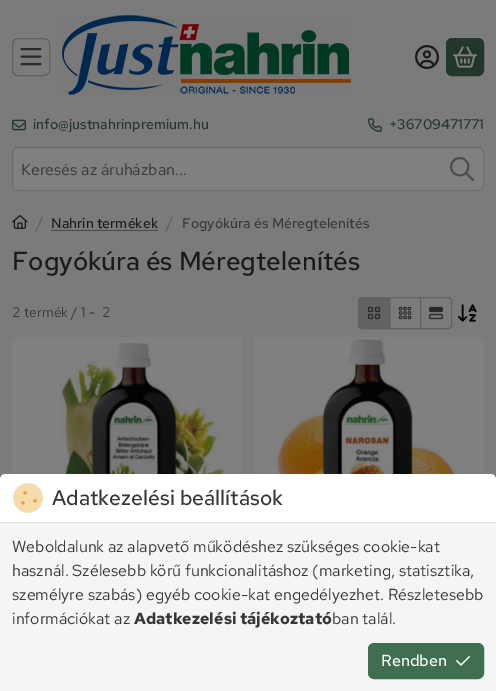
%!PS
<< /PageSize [496 691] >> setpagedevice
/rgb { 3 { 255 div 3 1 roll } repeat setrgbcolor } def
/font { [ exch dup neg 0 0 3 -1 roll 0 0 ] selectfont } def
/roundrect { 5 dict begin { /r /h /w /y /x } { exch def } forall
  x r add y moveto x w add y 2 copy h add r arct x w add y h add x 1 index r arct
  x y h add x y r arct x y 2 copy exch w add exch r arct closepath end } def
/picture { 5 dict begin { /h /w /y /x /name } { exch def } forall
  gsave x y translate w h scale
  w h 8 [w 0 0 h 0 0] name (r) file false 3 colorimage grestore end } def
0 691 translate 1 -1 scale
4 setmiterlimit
123 123 123 rgb
0 0 496 691 rectfill
97 97 97 rgb
12.5 38.5 37 37 5.5 roundrect stroke
(img/1.rgb) 20 48 22 18 picture
(img/2.rgb) 62 15 289 80 picture
(img/3.rgb) 415 45 24 24 picture
32 55 41 rgb
446.5 38.5 37 37 5.5 roundrect gsave fill grestore
stroke
(img/4.rgb) 453 46 24 22 picture
(img/5.rgb) 12 119 14 12 picture
(img/6.rgb) 368 118 14 14 picture
128 128 128 rgb
12.5 147.5 471 43 5.5 roundrect gsave fill grestore
110 110 110 rgb
stroke
(img/7.rgb) 450 157 24 24 picture
(img/8.rgb) 12 215 16 14 picture
74 74 74 rgb
51 230 107 1 rectfill
97 97 97 rgb
389.5 297.5 31 31 rectstroke
98 98 98 rgb
362 297.5 moveto 389.5 297.5 lineto 389.5 328.5 lineto 362 328.5 lineto 360 328.5 358.5 327 358.5 325 curveto 358.5 301 lineto 358.5 299 360 297.5 362 297.5 curveto closepath gsave fill grestore
97 97 97 rgb
stroke
(img/9.rgb) 367 306 14 14 picture
(img/10.rgb) 398 306 14 14 picture
123 123 123 rgb
420.5 297.5 moveto 448 297.5 lineto 450 297.5 451.5 299 451.5 301 curveto 451.5 325 lineto 451.5 327 450 328.5 448 328.5 curveto 420.5 328.5 lineto closepath gsave fill grestore
97 97 97 rgb
stroke
(img/11.rgb) 429 306 14 14 picture
(img/12.rgb) 458 304 19 18 picture
128 128 128 rgb
12 337 230 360 6 roundrect fill
(img/13.rgb) 23 343 204 131 picture
254 337 230 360 6 roundrect fill
(img/14.rgb) 254 339 207 135 picture
245 245 245 rgb
6 474 moveto 490 474 lineto 493.5 474 496 476.5 496 480 curveto 496 691 lineto 0 691 lineto 0 480 lineto 0 476.5 2.5 474 6 474 curveto closepath fill
255 255 255 rgb
6 474 moveto 490 474 lineto 493.5 474 496 476.5 496 480 curveto 496 523 lineto 0 523 lineto 0 480 lineto 0 476.5 2.5 474 6 474 curveto closepath fill
219 219 219 rgb
0 522 496 1 rectfill
(img/15.rgb) 13 483 30 30 picture
64 110 81 rgb
368.5 643.5 115 35 5.5 roundrect gsave fill grestore
stroke
(img/16.rgb) 456 656 14 10 picture
/RedHatText-Medium 14 font
32 55 41 rgb
33 129 moveto (info@justnahrinpremium.hu) show
389 129 moveto (+36709471771) show
/RedHatText-Regular 16 font
55 55 55 rgb
21 175 moveto (Keresés az áruházban...) show
/RedHatText-Medium 16 font
97 97 97 rgb
36 228 moveto (/) show
/RedHatText-Medium 14 font
26 26 26 rgb
51 228 moveto (Nahrin termékek) show
/RedHatText-Medium 16 font
97 97 97 rgb
166 228 moveto (/) show
/RedHatText-Medium 14 font
55 55 55 rgb
182 228 moveto (Fogyókúra és Méregtelenítés) show
/RedHatText-Medium 26 font
26 26 26 rgb
12 270 moveto (Fogyókúra és Méregtelenítés) show
/RedHatText-Regular 14 font
55 55 55 rgb
12 317 moveto (2 termék / 1 -) show
102 317 moveto (2) show
/RedHatText-Medium 21 font
52 505 moveto (Adatkezelési beállítások) show
/RedHatText-Regular 16 font
[
  [(Weboldalunk az alapvető működéshez szükséges cookie-kat) 12 552]
  [(használ. Szélesebb körű funkcionalitáshoz \(marketing, statisztika,) 12 576]
  [(személyre szabás\) egyéb cookie-kat engedélyezhet. Részletesebb) 12 600]
  [(információkat az) 12 624]
] { aload pop moveto show } forall
/RedHatText-Bold 16 font
134 624 moveto (Adatkezelési tájékoztató) show
/RedHatText-Regular 16 font
332 624 moveto (ban talál.) show
/RedHatText-Medium 16 font
255 255 255 rgb
381 666 moveto (Rendben) show
showpage
